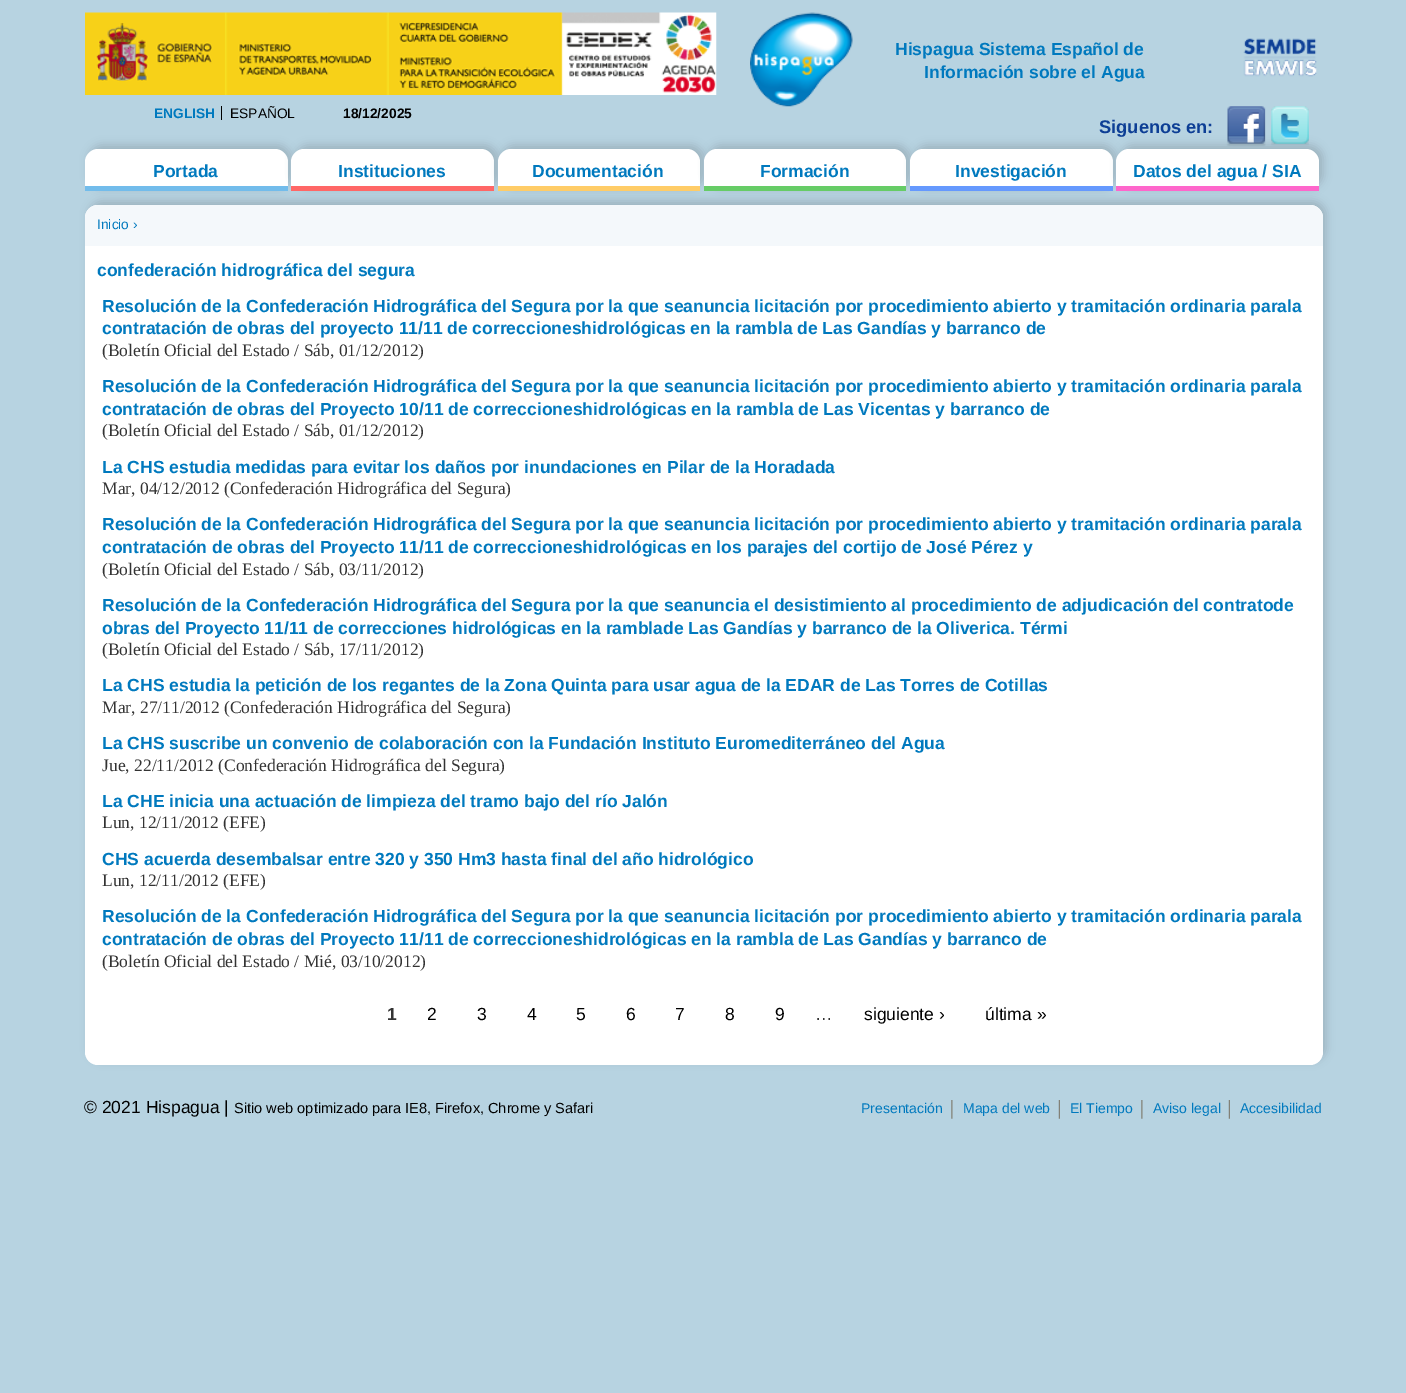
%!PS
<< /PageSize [1406 1393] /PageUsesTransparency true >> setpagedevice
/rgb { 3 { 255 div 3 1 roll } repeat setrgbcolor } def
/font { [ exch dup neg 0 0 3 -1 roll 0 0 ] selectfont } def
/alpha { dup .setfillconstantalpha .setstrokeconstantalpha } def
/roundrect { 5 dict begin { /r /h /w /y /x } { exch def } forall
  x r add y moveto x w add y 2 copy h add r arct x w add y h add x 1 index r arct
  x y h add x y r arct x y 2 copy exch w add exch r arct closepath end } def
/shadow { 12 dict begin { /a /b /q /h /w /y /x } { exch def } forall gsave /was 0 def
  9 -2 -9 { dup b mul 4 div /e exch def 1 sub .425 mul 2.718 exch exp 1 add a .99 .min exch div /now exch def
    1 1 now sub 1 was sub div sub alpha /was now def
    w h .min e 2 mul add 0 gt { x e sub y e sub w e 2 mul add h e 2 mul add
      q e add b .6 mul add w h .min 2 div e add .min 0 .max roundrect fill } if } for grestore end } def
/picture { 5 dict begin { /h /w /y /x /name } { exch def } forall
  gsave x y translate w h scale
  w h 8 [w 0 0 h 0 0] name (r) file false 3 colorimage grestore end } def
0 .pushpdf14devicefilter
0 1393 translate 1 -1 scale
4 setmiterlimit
183 211 225 rgb
0 0 1406 1393 rectfill
(img/1.rgb) 85 12 632 83 picture
(img/2.rgb) 750 12 103 95 picture
(img/3.rgb) 1243 38 74 39 picture
0 0 0 rgb
221 106 1 14 rectfill
(img/4.rgb) 1226 106 40 41 picture
(img/5.rgb) 1271 106 38 40 picture
156 179 191 rgb
89 145 202 43 13 4.5 1 shadow
89 201 1237 860 13 4.5 1 shadow
255 255 255 rgb
98 149 moveto 275 149 lineto 282 149 288 155 288 162 curveto 288 191 lineto 85 191 lineto 85 162 lineto 85 155 91 149 98 149 curveto closepath fill
114 188 235 rgb
85 186 203 5 rectfill
156 179 191 rgb
295 145 203 43 13 4.5 1 shadow
255 255 255 rgb
304 149 moveto 481 149 lineto 488 149 494 155 494 162 curveto 494 191 lineto 291 191 lineto 291 162 lineto 291 155 297 149 304 149 curveto closepath fill
255 103 102 rgb
291 186 203 5 rectfill
156 179 191 rgb
501 145 203 43 13 4.5 1 shadow
255 255 255 rgb
511 149 moveto 687 149 lineto 694 149 700 155 700 162 curveto 700 191 lineto 498 191 lineto 498 162 lineto 498 155 504 149 511 149 curveto closepath fill
255 204 103 rgb
498 186 202 5 rectfill
156 179 191 rgb
708 145 202 43 13 4.5 1 shadow
255 255 255 rgb
717 149 moveto 893 149 lineto 900 149 906 155 906 162 curveto 906 191 lineto 704 191 lineto 704 162 lineto 704 155 710 149 717 149 curveto closepath fill
102 204 102 rgb
704 186 202 5 rectfill
156 179 191 rgb
914 145 202 43 13 4.5 1 shadow
255 255 255 rgb
923 149 moveto 1100 149 lineto 1107 149 1113 155 1113 162 curveto 1113 191 lineto 910 191 lineto 910 162 lineto 910 155 916 149 923 149 curveto closepath fill
101 153 254 rgb
910 186 203 5 rectfill
156 179 191 rgb
1120 145 203 43 13 4.5 1 shadow
255 255 255 rgb
1129 149 moveto 1306 149 lineto 1313 149 1319 155 1319 162 curveto 1319 191 lineto 1116 191 lineto 1116 162 lineto 1116 155 1122 149 1129 149 curveto closepath fill
254 102 203 rgb
1116 186 203 5 rectfill
255 255 255 rgb
85 205 1238 860 13 roundrect fill
244 248 251 rgb
98 205 moveto 1310 205 lineto 1317 205 1323 211 1323 218 curveto 1323 246 lineto 85 246 lineto 85 218 lineto 85 211 91 205 98 205 curveto closepath fill
(img/6.rgb) 951 1100 2 19 picture
(img/7.rgb) 1058 1100 2 19 picture
(img/6.rgb) 1141 1100 2 19 picture
(img/7.rgb) 1228 1100 2 19 picture
/LiberationSans-Bold 17.5 font
0 121 190 rgb
895 55 moveto (Hispagua Sistema Español de) show
924 78 moveto (Información sobre el Agua) show
/LiberationSans-Bold 13.75 font
154 118 moveto (ENGLISH) show
/LiberationSans-Regular 13.75 font
0 0 0 rgb
230 118 moveto (ESPAÑOL) show
/LiberationSans-Bold 13.75 font
343 118 moveto (18/12/2025) show
/LiberationSans-Bold 18.25 font
13 62 149 rgb
1099 133 moveto (Siguenos en:) show
/LiberationSans-Bold 17.5 font
0 121 190 rgb
[
  [(Portada) 153 177]
  [(Instituciones) 338 177]
  [(Documentación) 532 177]
  [(Formación) 760 177]
  [(Investigación) 955 177]
  [(Datos del agua / SIA) 1133 177]
] { aload pop moveto show } forall
/LiberationSans-Regular 13.75 font
97 229 moveto (Inicio ›) show
/LiberationSans-Bold 17.5 font
[
  [(confederación hidrográfica del segura) 97 276]
  [(Resolución de la Confederación Hidrográfica del Segura por la que seanuncia licitación por procedimiento abierto y tramitación ordinaria parala) 102 312]
  [(contratación de obras del proyecto 11/11 de correccioneshidrológicas en la rambla de Las Gandías y barranco de) 102 334]
] { aload pop moveto show } forall
/LiberationSerif-Regular 17.5 font
51 51 51 rgb
102 356 moveto (\(Boletín Oficial del Estado / Sáb, 01/12/2012\)) show
/LiberationSans-Bold 17.5 font
0 121 190 rgb
102 392 moveto (Resolución de la Confederación Hidrográfica del Segura por la que seanuncia licitación por procedimiento abierto y tramitación ordinaria parala) show
102 415 moveto (contratación de obras del Proyecto 10/11 de correccioneshidrológicas en la rambla de Las Vicentas y barranco de) show
/LiberationSerif-Regular 17.5 font
51 51 51 rgb
102 436 moveto (\(Boletín Oficial del Estado / Sáb, 01/12/2012\)) show
/LiberationSans-Bold 17.5 font
0 121 190 rgb
102 473 moveto (La CHS estudia medidas para evitar los daños por inundaciones en Pilar de la Horadada) show
/LiberationSerif-Regular 17.5 font
51 51 51 rgb
102 494 moveto (Mar, 04/12/2012 \(Confederación Hidrográfica del Segura\)) show
/LiberationSans-Bold 17.5 font
0 121 190 rgb
102 530 moveto (Resolución de la Confederación Hidrográfica del Segura por la que seanuncia licitación por procedimiento abierto y tramitación ordinaria parala) show
102 553 moveto (contratación de obras del Proyecto 11/11 de correccioneshidrológicas en los parajes del cortijo de José Pérez y) show
/LiberationSerif-Regular 17.5 font
51 51 51 rgb
102 575 moveto (\(Boletín Oficial del Estado / Sáb, 03/11/2012\)) show
/LiberationSans-Bold 17.5 font
0 121 190 rgb
102 611 moveto (Resolución de la Confederación Hidrográfica del Segura por la que seanuncia el desistimiento al procedimiento de adjudicación del contratode) show
102 634 moveto (obras del Proyecto 11/11 de correcciones hidrológicas en la ramblade Las Gandías y barranco de la Oliverica. Térmi) show
/LiberationSerif-Regular 17.5 font
51 51 51 rgb
102 655 moveto (\(Boletín Oficial del Estado / Sáb, 17/11/2012\)) show
/LiberationSans-Bold 17.5 font
0 121 190 rgb
102 691 moveto (La CHS estudia la petición de los regantes de la Zona Quinta para usar agua de la EDAR de Las Torres de Cotillas) show
/LiberationSerif-Regular 17.5 font
51 51 51 rgb
102 713 moveto (Mar, 27/11/2012 \(Confederación Hidrográfica del Segura\)) show
/LiberationSans-Bold 17.5 font
0 121 190 rgb
102 749 moveto (La CHS suscribe un convenio de colaboración con la Fundación Instituto Euromediterráneo del Agua) show
/LiberationSerif-Regular 17.5 font
51 51 51 rgb
102 771 moveto (Jue, 22/11/2012 \(Confederación Hidrográfica del Segura\)) show
/LiberationSans-Bold 17.5 font
0 121 190 rgb
102 807 moveto (La CHE inicia una actuación de limpieza del tramo bajo del río Jalón) show
/LiberationSerif-Regular 17.5 font
51 51 51 rgb
102 828 moveto (Lun, 12/11/2012 \(EFE\)) show
/LiberationSans-Bold 17.5 font
0 121 190 rgb
102 865 moveto (CHS acuerda desembalsar entre 320 y 350 Hm3 hasta final del año hidrológico) show
/LiberationSerif-Regular 17.5 font
51 51 51 rgb
102 886 moveto (Lun, 12/11/2012 \(EFE\)) show
/LiberationSans-Bold 17.5 font
0 121 190 rgb
102 922 moveto (Resolución de la Confederación Hidrográfica del Segura por la que seanuncia licitación por procedimiento abierto y tramitación ordinaria parala) show
102 945 moveto (contratación de obras del Proyecto 11/11 de correccioneshidrológicas en la rambla de Las Gandías y barranco de) show
/LiberationSerif-Regular 17.5 font
51 51 51 rgb
102 967 moveto (\(Boletín Oficial del Estado / Mié, 03/10/2012\)) show
/LiberationSans-Bold 17.5 font
387 1020 moveto (1) show
/LiberationSans-Regular 17.5 font
0 0 0 rgb
[
  [(2) 427 1020]
  [(3) 477 1020]
  [(4) 527 1020]
  [(5) 576 1020]
  [(6) 626 1020]
  [(7) 675 1020]
  [(8) 725 1020]
  [(9) 775 1020]
] { aload pop moveto show } forall
51 51 51 rgb
815 1020 moveto (…) show
0 0 0 rgb
[
  [(siguiente ›) 864 1020]
  [(última ») 985 1020]
  [(© 2021 Hispagua |) 84 1113]
] { aload pop moveto show } forall
/LiberationSans-Regular 14.6 font
234 1113 moveto (Sitio web optimizado para IE8, Firefox, Chrome y Safari) show
/LiberationSans-Regular 14 font
0 121 190 rgb
[
  [(Presentación) 861 1113]
  [(Mapa del web) 963 1113]
  [(El Tiempo) 1070 1113]
  [(Aviso legal) 1153 1113]
  [(Accesibilidad) 1240 1113]
] { aload pop moveto show } forall
.poppdf14devicefilter showpage
